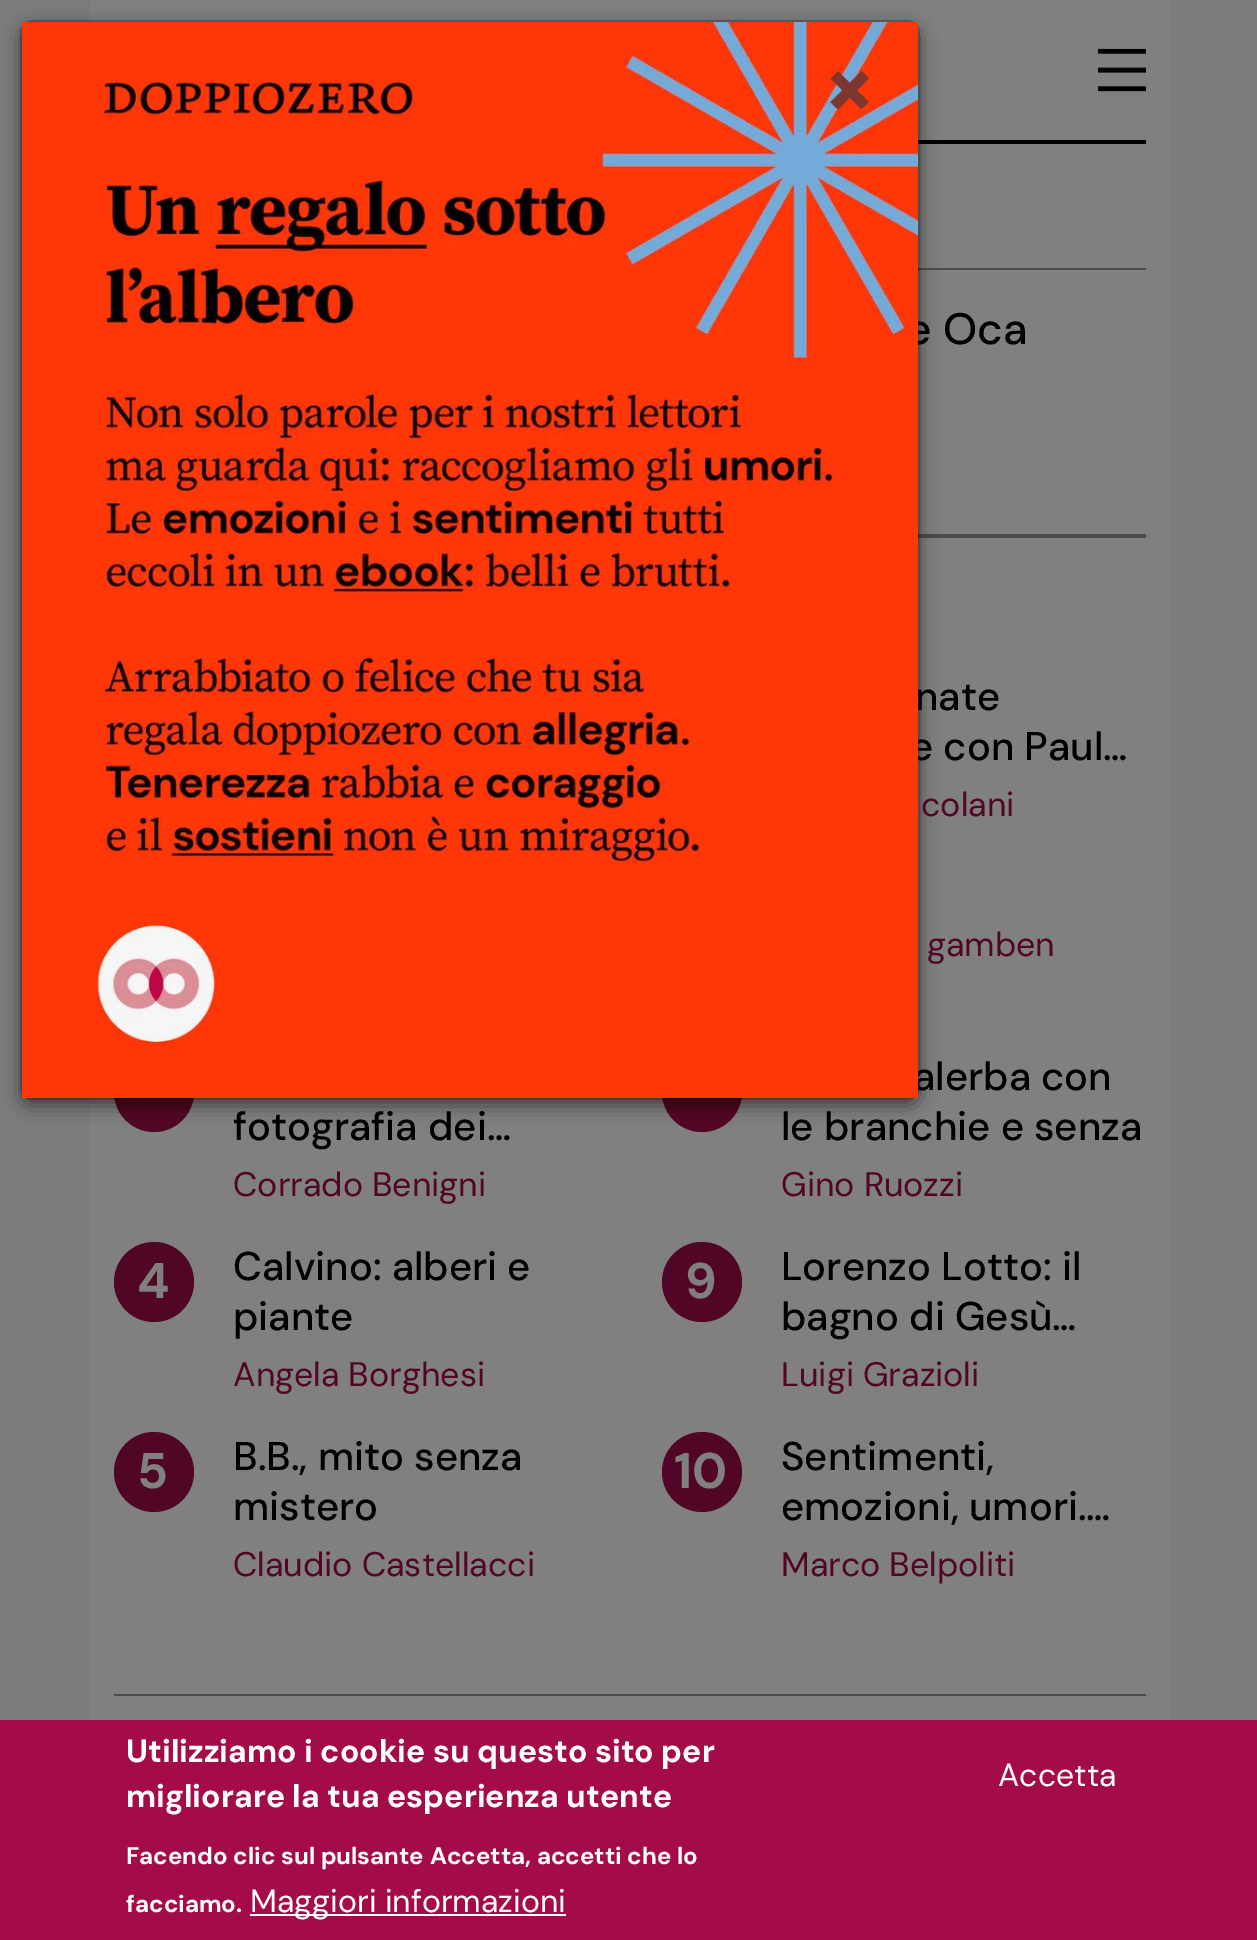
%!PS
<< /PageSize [1257 1940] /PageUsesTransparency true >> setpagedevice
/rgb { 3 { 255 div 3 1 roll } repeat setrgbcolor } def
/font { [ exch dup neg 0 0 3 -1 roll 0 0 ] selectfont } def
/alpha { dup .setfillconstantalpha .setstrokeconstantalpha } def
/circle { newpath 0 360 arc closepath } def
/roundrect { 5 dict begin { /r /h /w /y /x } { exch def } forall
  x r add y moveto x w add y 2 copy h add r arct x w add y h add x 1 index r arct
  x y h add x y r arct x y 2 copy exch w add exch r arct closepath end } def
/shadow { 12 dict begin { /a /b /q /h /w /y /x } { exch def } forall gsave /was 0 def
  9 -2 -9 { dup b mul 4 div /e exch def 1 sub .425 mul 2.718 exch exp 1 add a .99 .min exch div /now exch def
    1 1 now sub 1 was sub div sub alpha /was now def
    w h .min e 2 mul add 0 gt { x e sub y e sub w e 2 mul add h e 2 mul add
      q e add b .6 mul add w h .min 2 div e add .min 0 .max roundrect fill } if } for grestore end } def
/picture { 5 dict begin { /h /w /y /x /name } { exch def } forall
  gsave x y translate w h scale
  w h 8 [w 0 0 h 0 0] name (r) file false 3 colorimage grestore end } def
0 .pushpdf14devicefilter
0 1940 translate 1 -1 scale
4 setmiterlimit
124 124 124 rgb
0 0 1257 1940 rectfill
[
  [90 0 1080 1720 128 128 128]
  [918 140 228 4 0 0 0]
  [918 268 228 2 75 75 74]
  [918 534 228 4 75 75 74]
] { aload pop rgb rectfill } forall
82 6 37 rgb
154 1092 40 circle fill
702 1092 40 circle fill
0 0 0 rgb
20 26 900 1080 12 9 0.5 shadow
(img/2.rgb) 1097 48 49 44 picture
82 6 37 rgb
154 1282 40 circle fill
702 1282 40 circle fill
154 1472 40 circle fill
702 1472 40 circle fill
[
  [114 1694 1032 2 75 75 74]
  [0 1720 1257 220 163 12 73]
  [250 1914 316 2 255 255 255]
] { aload pop rgb rectfill } forall
/DMSans-Medium 44 font
0 0 0 rgb
906 344 moveto (e Oca) show
/DMSans-Medium 40 font
915 710 moveto (nate) show
910 760 moveto (e con Paul…) show
/DMSans-Regular 34 font
82 6 37 rgb
921 816 moveto (colani) show
927 956 moveto (gamben) show
gsave
234 1052 364 100 rectclip
/DMSans-Medium 40 font
0 0 0 rgb
233 1140 moveto (fotografia dei…) show
grestore
233 1196 moveto (Corrado Benigni) show
/DMSans-Medium 40 font
0 0 0 rgb
913 1090 moveto (alerba con) show
0.2 alpha
2 setlinewidth
21 21 898 1078 11 roundrect stroke
1 alpha
(img/1.rgb) 22 22 896 1076 picture
/DMSans-Bold 96 font
126 55 46 rgb
822 118 moveto (×) show
/DMSans-Medium 40 font
0 0 0 rgb
781 1140 moveto (le branchie e senza) show
/DMSans-Regular 34 font
82 6 37 rgb
781 1196 moveto (Gino Ruozzi) show
/DMSans-Bold 50 font
128 128 128 rgb
137 1298 moveto (4) show
/DMSans-Medium 40 font
0 0 0 rgb
233 1280 moveto (Calvino: alberi e) show
233 1330 moveto (piante) show
/DMSans-Regular 34 font
82 6 37 rgb
233 1386 moveto (Angela Borghesi) show
/DMSans-Bold 50 font
128 128 128 rgb
685 1298 moveto (9) show
/DMSans-Medium 40 font
0 0 0 rgb
781 1280 moveto (Lorenzo Lotto: il) show
781 1330 moveto (bagno di Gesù…) show
/DMSans-Regular 34 font
82 6 37 rgb
781 1386 moveto (Luigi Grazioli) show
/DMSans-Bold 50 font
128 128 128 rgb
137 1488 moveto (5) show
/DMSans-Medium 40 font
0 0 0 rgb
233 1470 moveto (B.B., mito senza) show
233 1520 moveto (mistero) show
/DMSans-Regular 34 font
82 6 37 rgb
233 1576 moveto (Claudio Castellacci) show
/DMSans-Bold 50 font
128 128 128 rgb
674 1488 moveto (10) show
/DMSans-Medium 40 font
0 0 0 rgb
781 1470 moveto (Sentimenti,) show
781 1520 moveto (emozioni, umori.…) show
/DMSans-Regular 34 font
82 6 37 rgb
781 1576 moveto (Marco Belpoliti) show
/DMSans-Bold 32 font
255 255 255 rgb
126 1762 moveto (Utilizziamo i cookie su questo sito per) show
126 1807 moveto (migliorare la tua esperienza utente) show
/DMSans-Bold 24 font
126 1864 moveto (Facendo clic sul pulsante Accetta, accetti che lo) show
126 1912 moveto (facciamo.) show
/DMSans-Regular 32 font
250 1912 moveto (Maggiori informazioni) show
998 1786 moveto (Accetta) show
.poppdf14devicefilter showpage
